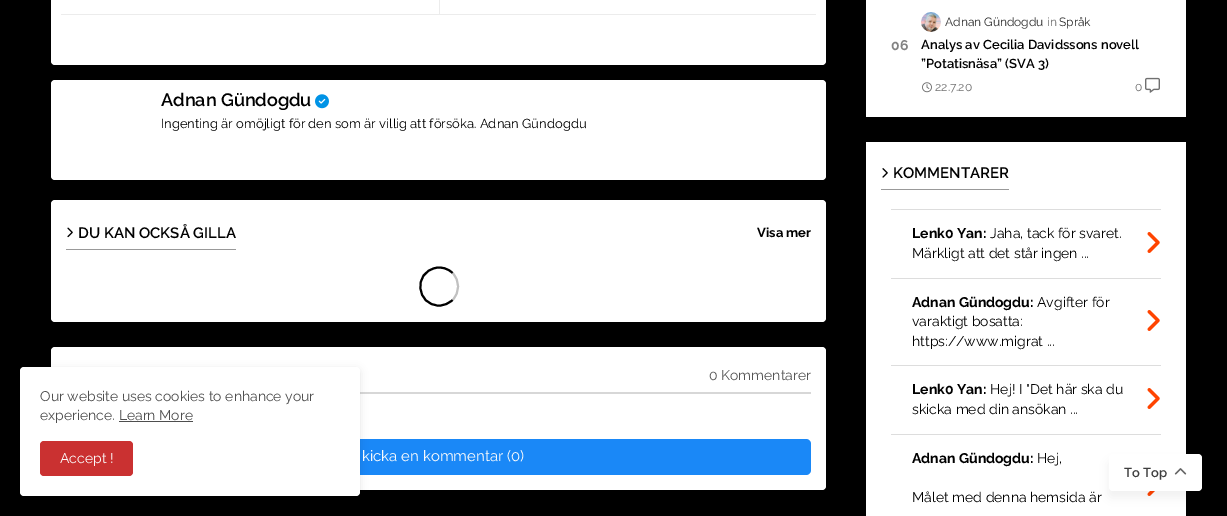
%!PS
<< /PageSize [1227 516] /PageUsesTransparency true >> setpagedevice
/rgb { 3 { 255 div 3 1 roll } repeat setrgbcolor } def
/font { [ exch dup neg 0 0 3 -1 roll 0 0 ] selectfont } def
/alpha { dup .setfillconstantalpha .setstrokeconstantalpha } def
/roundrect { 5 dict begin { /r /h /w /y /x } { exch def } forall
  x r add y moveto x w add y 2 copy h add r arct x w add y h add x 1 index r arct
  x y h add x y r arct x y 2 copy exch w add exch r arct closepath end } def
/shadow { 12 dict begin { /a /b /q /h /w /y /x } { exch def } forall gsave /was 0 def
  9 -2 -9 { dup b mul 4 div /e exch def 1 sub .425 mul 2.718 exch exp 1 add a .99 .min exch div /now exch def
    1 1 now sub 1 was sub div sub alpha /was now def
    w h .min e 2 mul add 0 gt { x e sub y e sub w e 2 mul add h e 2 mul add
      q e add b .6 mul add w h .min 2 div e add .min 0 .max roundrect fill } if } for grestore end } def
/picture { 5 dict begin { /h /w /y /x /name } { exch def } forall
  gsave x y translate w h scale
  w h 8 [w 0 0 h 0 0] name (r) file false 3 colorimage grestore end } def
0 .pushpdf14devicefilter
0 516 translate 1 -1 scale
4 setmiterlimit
0 0 0 rgb
0 0 1227 516 rectfill
255 255 255 rgb
51 -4 775 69 4 roundrect fill
236 236 236 rgb
61 14 755 1 rectfill
439 0 1 14 rectfill
255 255 255 rgb
51 80 775 100 4 roundrect fill
(img/1.rgb) 315 94 14 15 picture
51 200 775 122 4 roundrect fill
153 153 153 rgb
66 249 170 1 rectfill
(img/2.rgb) 67 227 6 11 picture
193 193 193 rgb
2 setlinewidth
452.5 273 moveto 460 280.5 460 292.5 452.5 300 curveto stroke
0 0 0 rgb
452.5 300 moveto 449 303.5 444 305.5 439 305.5 curveto 416.5 305.5 413 272.5 435.5 268 curveto 441.5 266.5 448 268.5 452.5 273 curveto stroke
255 255 255 rgb
51 347 775 143 4 roundrect fill
215 215 215 rgb
360 392 451 2 rectfill
26 136 247 rgb
66 439 745 36 5 roundrect fill
255 255 255 rgb
866 0 320 117 rectfill
(img/3.rgb) 921 12 20 20 picture
(img/4.rgb) 922 82 10 11 picture
(img/5.rgb) 1145 77 15 16 picture
866 142 320 374 rectfill
153 153 153 rgb
881 189 128 1 rectfill
(img/6.rgb) 882 168 6 10 picture
221 221 221 rgb
891 209 270 1 rectfill
(img/7.rgb) 1147 232 13 21 picture
891 278 270 1 rectfill
(img/7.rgb) 1147 310 13 21 picture
891 365 270 1 rectfill
(img/7.rgb) 1147 388 13 21 picture
891 434 270 1 rectfill
(img/8.rgb) 1147 491 8 5 picture
0 0 0 rgb
20 369 340 129 4 4 0.11 shadow
255 255 255 rgb
20 367 340 129 4 roundrect fill
78 78 78 rgb
119 421 74 1 rectfill
202 49 49 rgb
40 441 93 35 4 roundrect fill
0 0 0 rgb
1108 461 93 37 4 5 0.06 shadow
255 255 255 rgb
1109 454 93 37 4 roundrect fill
(img/9.rgb) 1174 468 13 7 picture
/Raleway-SemiBold 18 font
0 0 0 rgb
161 106 moveto (Adnan Gündogdu) show
/Raleway-Regular 13 font
161 128 moveto (Ingenting är omöjligt för den som är villig att försöka. Adnan Gündogdu) show
/Raleway-SemiBold 15 font
78 238 moveto (DU KAN OCKSÅ GILLA) show
/Raleway-Bold 13 font
757 237 moveto (Visa mer) show
/Raleway-Regular 14 font
85 85 85 rgb
709 380 moveto (0 Kommentarer) show
/Raleway-Regular 15 font
251 251 251 rgb
362 461 moveto (kicka en kommentar \(0\)) show
/Raleway-Regular 12 font
44 44 44 rgb
945 26 moveto (Adnan Gündogdu) show
112 112 112 rgb
1047 26 moveto (in) show
44 44 44 rgb
1059 26 moveto (Språk) show
/Raleway-Bold 14 font
130 130 130 rgb
891 50 moveto (06) show
/Raleway-SemiBold 13 font
0 0 0 rgb
921 49 moveto (Analys av Cecilia Davidssons novell) show
921 68 moveto (”Potatisnäsa” \(SVA 3\)) show
/Raleway-Regular 12 font
112 112 112 rgb
935 91 moveto (22.7.20) show
1135 91 moveto (0) show
/Raleway-SemiBold 15 font
0 0 0 rgb
893 178 moveto (KOMMENTARER) show
/Raleway-Bold 14 font
912 238 moveto (Lenk0 Yan:) show
/Raleway-Regular 14 font
990 238 moveto (Jaha, tack för svaret.) show
912 258 moveto (Märkligt att det står ingen ...) show
/Raleway-Bold 14 font
912 307 moveto (Adnan Gündogdu:) show
/Raleway-Regular 14 font
[
  [(Avgifter för) 1037 307]
  [(varaktigt bosatta:) 912 326]
  [(https://www.migrat ...) 912 346]
] { aload pop moveto show } forall
/Raleway-Bold 14 font
912 394 moveto (Lenk0 Yan:) show
/Raleway-Regular 14 font
990 394 moveto (Hej! I "Det här ska du) show
912 414 moveto (skicka med din ansökan ...) show
/Raleway-Bold 14 font
912 463 moveto (Adnan Gündogdu:) show
/Raleway-Regular 14 font
1037 463 moveto (Hej,) show
912 502 moveto (Målet med denna hemsida är) show
78 78 78 rgb
40 401 moveto (Our website uses cookies to enhance your) show
40 420 moveto (experience. Learn More) show
251 251 251 rgb
60 463 moveto (Accept !) show
/Raleway-SemiBold 13 font
62 62 62 rgb
1124 477 moveto (To Top) show
.poppdf14devicefilter showpage
